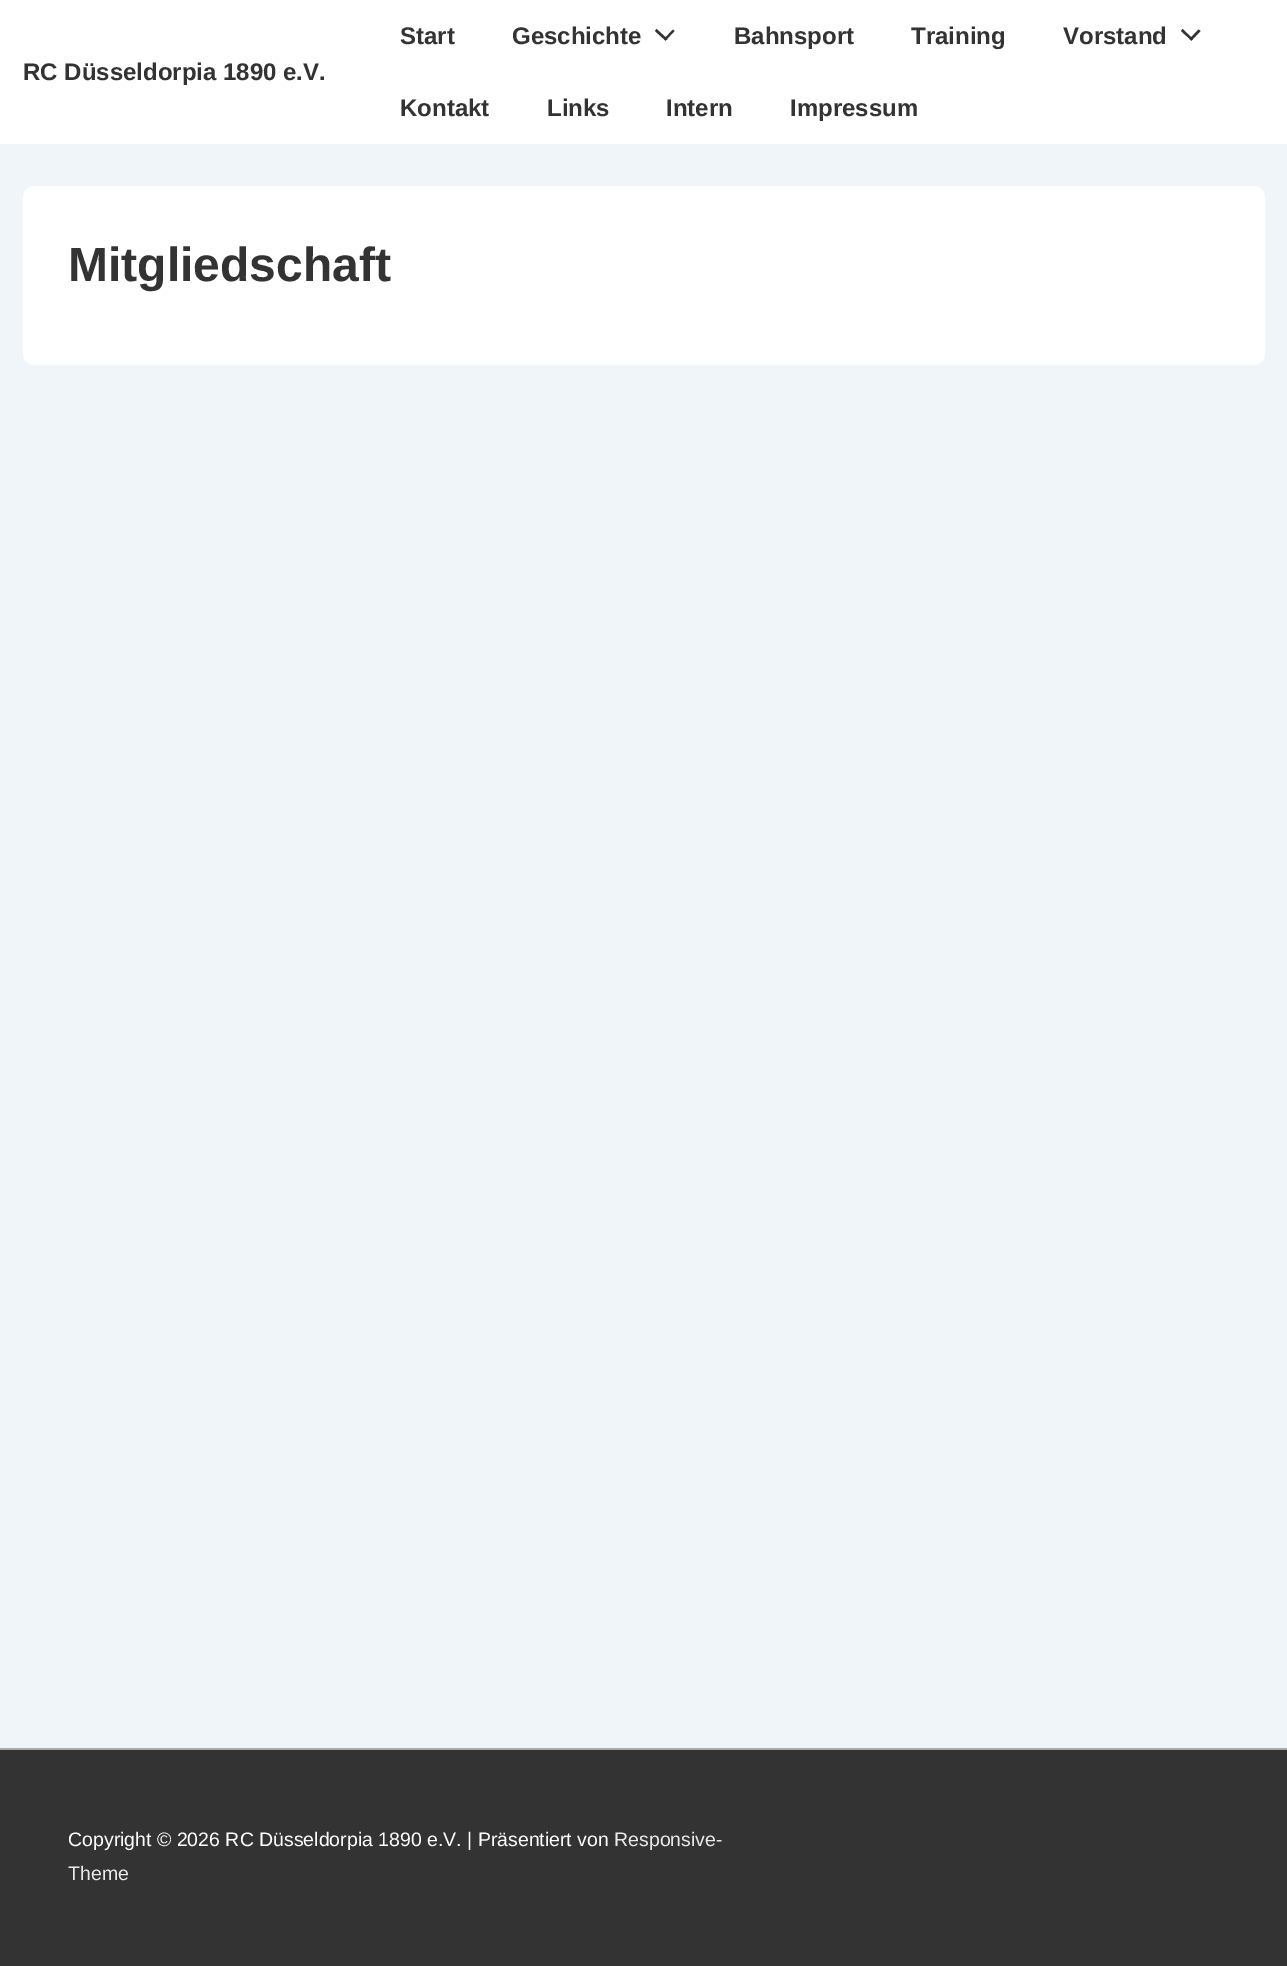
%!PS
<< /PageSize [1287 1966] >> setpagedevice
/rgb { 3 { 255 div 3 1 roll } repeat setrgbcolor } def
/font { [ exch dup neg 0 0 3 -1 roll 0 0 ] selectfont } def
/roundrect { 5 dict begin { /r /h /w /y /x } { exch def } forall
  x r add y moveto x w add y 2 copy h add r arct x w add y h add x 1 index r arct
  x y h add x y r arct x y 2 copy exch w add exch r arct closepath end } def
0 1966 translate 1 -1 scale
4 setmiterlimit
240 245 250 rgb
0 0 1287 1966 rectfill
255 255 255 rgb
0 0 1287 144 rectfill
51 51 51 rgb
655 31 moveto 656.5 29 lineto 667.5 39 lineto 665.5 40.5 lineto closepath fill
664 39 moveto 673 29.5 lineto 674.5 31 lineto 665.5 40.5 lineto closepath fill
1181 31 moveto 1182.5 29 lineto 1193 39 lineto 1191.5 40.5 lineto closepath fill
1189.5 39 moveto 1198.5 29.5 lineto 1200.5 31 lineto 1191.5 40.5 lineto closepath fill
255 255 255 rgb
23 186 1242 179 12 roundrect fill
51 51 51 rgb
0 1750 1287 216 rectfill
170 170 170 rgb
0 1748 1287 2 rectfill
/LiberationSans-Bold 24 font
51 51 51 rgb
[
  [(RC Düsseldorpia 1890 e.V.) 23 80]
  [(Start) 400 44]
  [(Geschichte) 512 44]
  [(Bahnsport) 734 44]
  [(Training) 911 44]
  [(Vorstand) 1063 44]
  [(Kontakt) 400 116]
  [(Links) 547 116]
  [(Intern) 666 116]
  [(Impressum) 790 116]
] { aload pop moveto show } forall
/LiberationSans-Bold 48 font
68 281 moveto (Mitgliedschaft) show
/LiberationSans-Regular 19.5 font
255 255 255 rgb
68 1846 moveto (Copyright © 2026 RC Düsseldorpia 1890 e.V. | Präsentiert von) show
234 234 234 rgb
614 1846 moveto (Responsive-) show
68 1880 moveto (Theme) show
showpage
